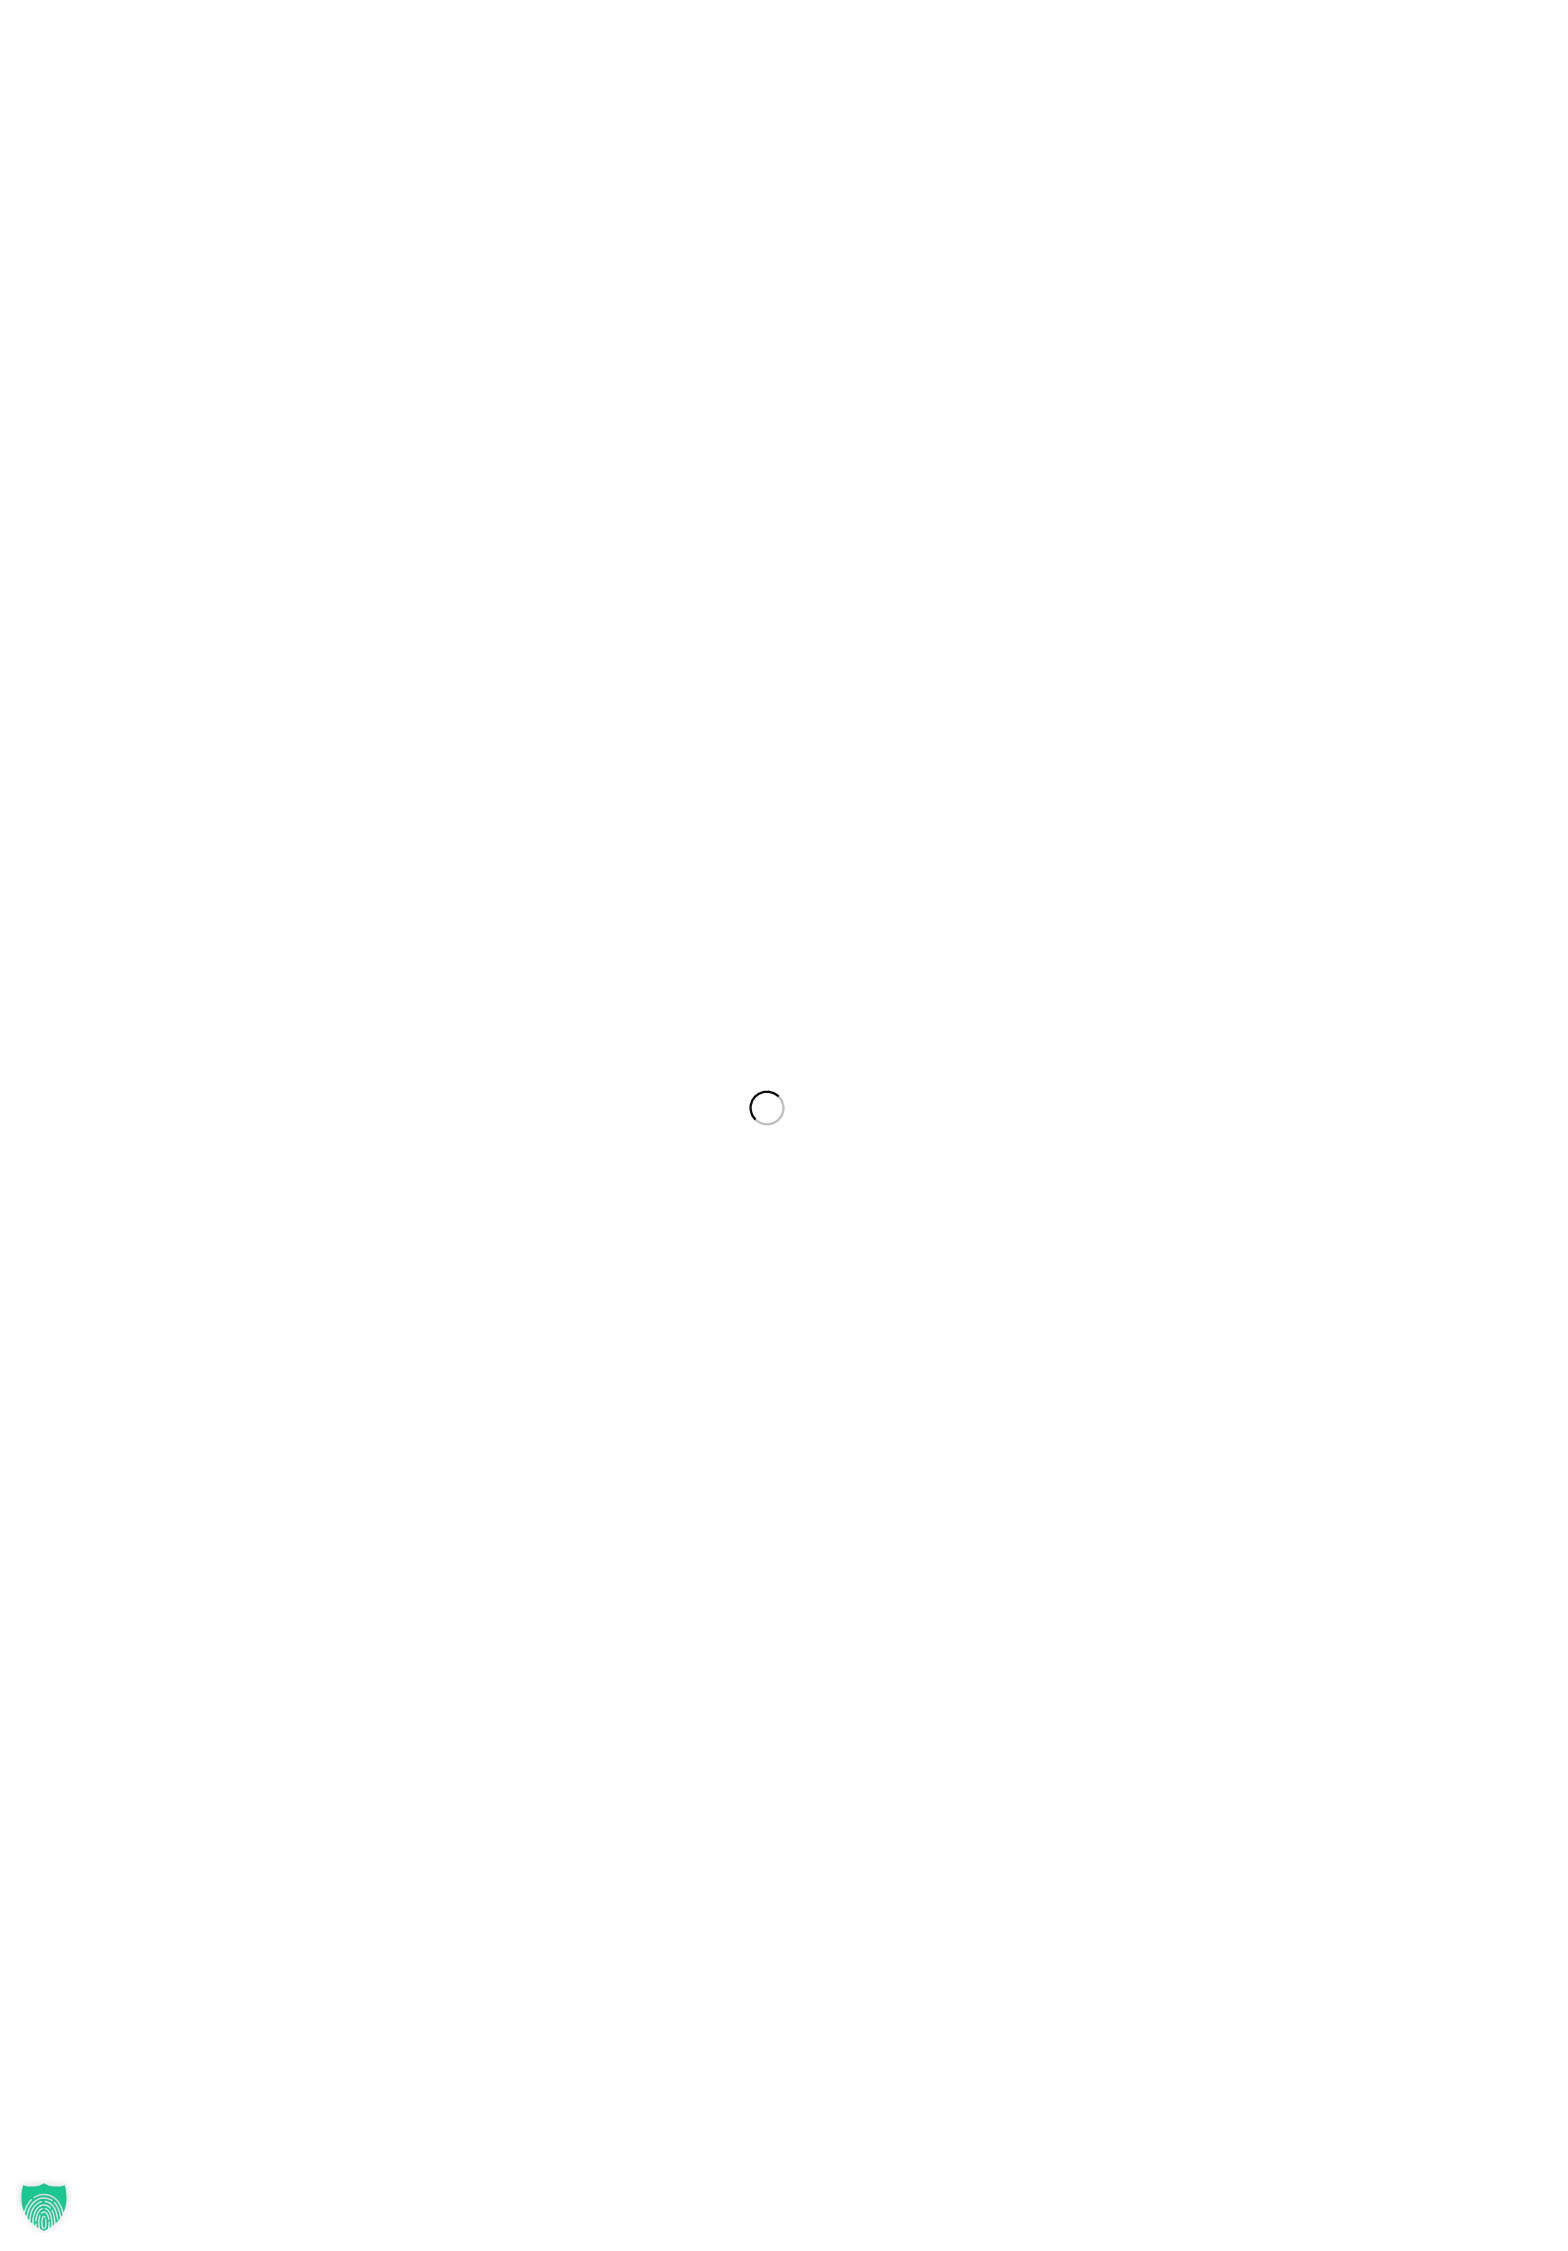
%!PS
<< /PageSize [1568 2251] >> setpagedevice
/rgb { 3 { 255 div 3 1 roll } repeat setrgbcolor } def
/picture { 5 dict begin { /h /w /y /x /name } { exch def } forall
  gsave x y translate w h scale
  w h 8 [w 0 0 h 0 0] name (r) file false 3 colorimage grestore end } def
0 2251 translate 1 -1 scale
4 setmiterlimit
255 255 255 rgb
0 0 1568 2251 rectfill
191 191 191 rgb
2 setlinewidth
778.5 1096.5 moveto 781 1098.5 782.5 1101.5 783 1105 curveto 786.5 1120.5 767 1131 755.5 1119.5 curveto stroke
13 13 13 rgb
755.5 1119.5 moveto 753 1117.5 751.5 1114.5 751 1111 curveto 747.5 1095.5 767 1085 778.5 1096.5 curveto stroke
(img/1.rgb) 16 2179 56 54 picture
showpage
